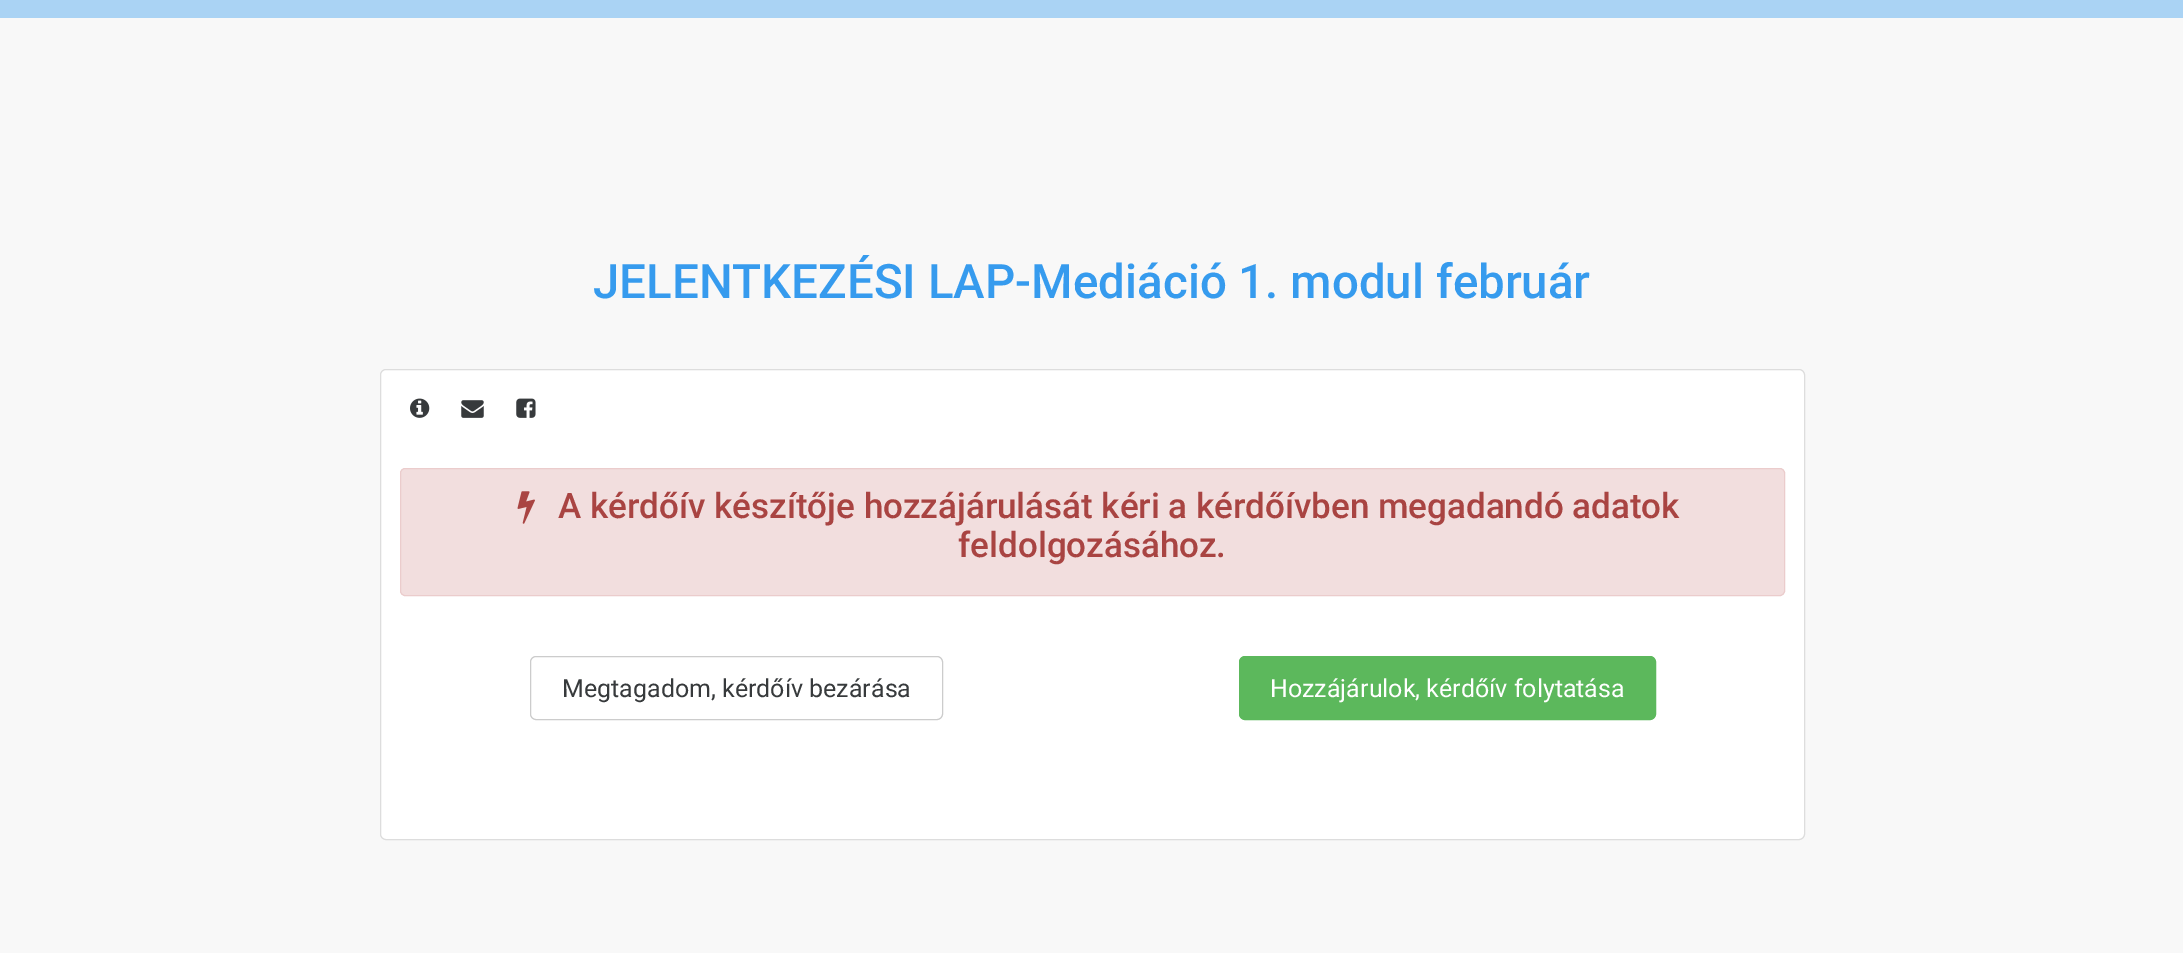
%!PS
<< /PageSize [2183 953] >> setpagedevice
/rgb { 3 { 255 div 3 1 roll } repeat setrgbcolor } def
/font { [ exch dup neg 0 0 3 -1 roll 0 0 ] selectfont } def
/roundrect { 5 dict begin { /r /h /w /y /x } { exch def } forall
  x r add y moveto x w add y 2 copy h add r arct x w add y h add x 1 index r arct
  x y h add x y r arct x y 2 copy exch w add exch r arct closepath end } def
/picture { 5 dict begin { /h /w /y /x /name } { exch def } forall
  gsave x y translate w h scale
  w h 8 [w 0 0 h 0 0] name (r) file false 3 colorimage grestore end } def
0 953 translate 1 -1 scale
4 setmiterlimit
248 248 248 rgb
0 0 2183 953 rectfill
170 211 244 rgb
0 0 2183 18 rectfill
255 255 255 rgb
380.5 369.5 1424 470 5.5 roundrect gsave fill grestore
221 221 221 rgb
stroke
(img/1.rgb) 410 398 20 20 picture
(img/2.rgb) 461 400 23 18 picture
(img/3.rgb) 516 398 20 20 picture
242 222 222 rgb
400.5 468.5 1384 127 4.5 roundrect gsave fill grestore
235 204 204 rgb
stroke
(img/4.rgb) 517 491 18 33 picture
204 204 204 rgb
530.5 656.5 412 63 5.5 roundrect stroke
92 184 92 rgb
1239.5 656.5 416 63 5.5 roundrect gsave fill grestore
stroke
/Roboto-Medium 47.5 font
54 155 238 rgb
593 298 moveto (JELENTKEZÉSI LAP-Mediáció 1. modul február) show
/Roboto-Medium 35 font
169 68 66 rgb
558 518 moveto (A kérdőív készítője hozzájárulását kéri a kérdőívben megadandó adatok) show
958 557 moveto (feldolgozásához.) show
/Roboto-Regular 25 font
55 58 60 rgb
562 697 moveto (Megtagadom, kérdőív bezárása) show
255 255 255 rgb
1270 697 moveto (Hozzájárulok, kérdőív folytatása) show
showpage
